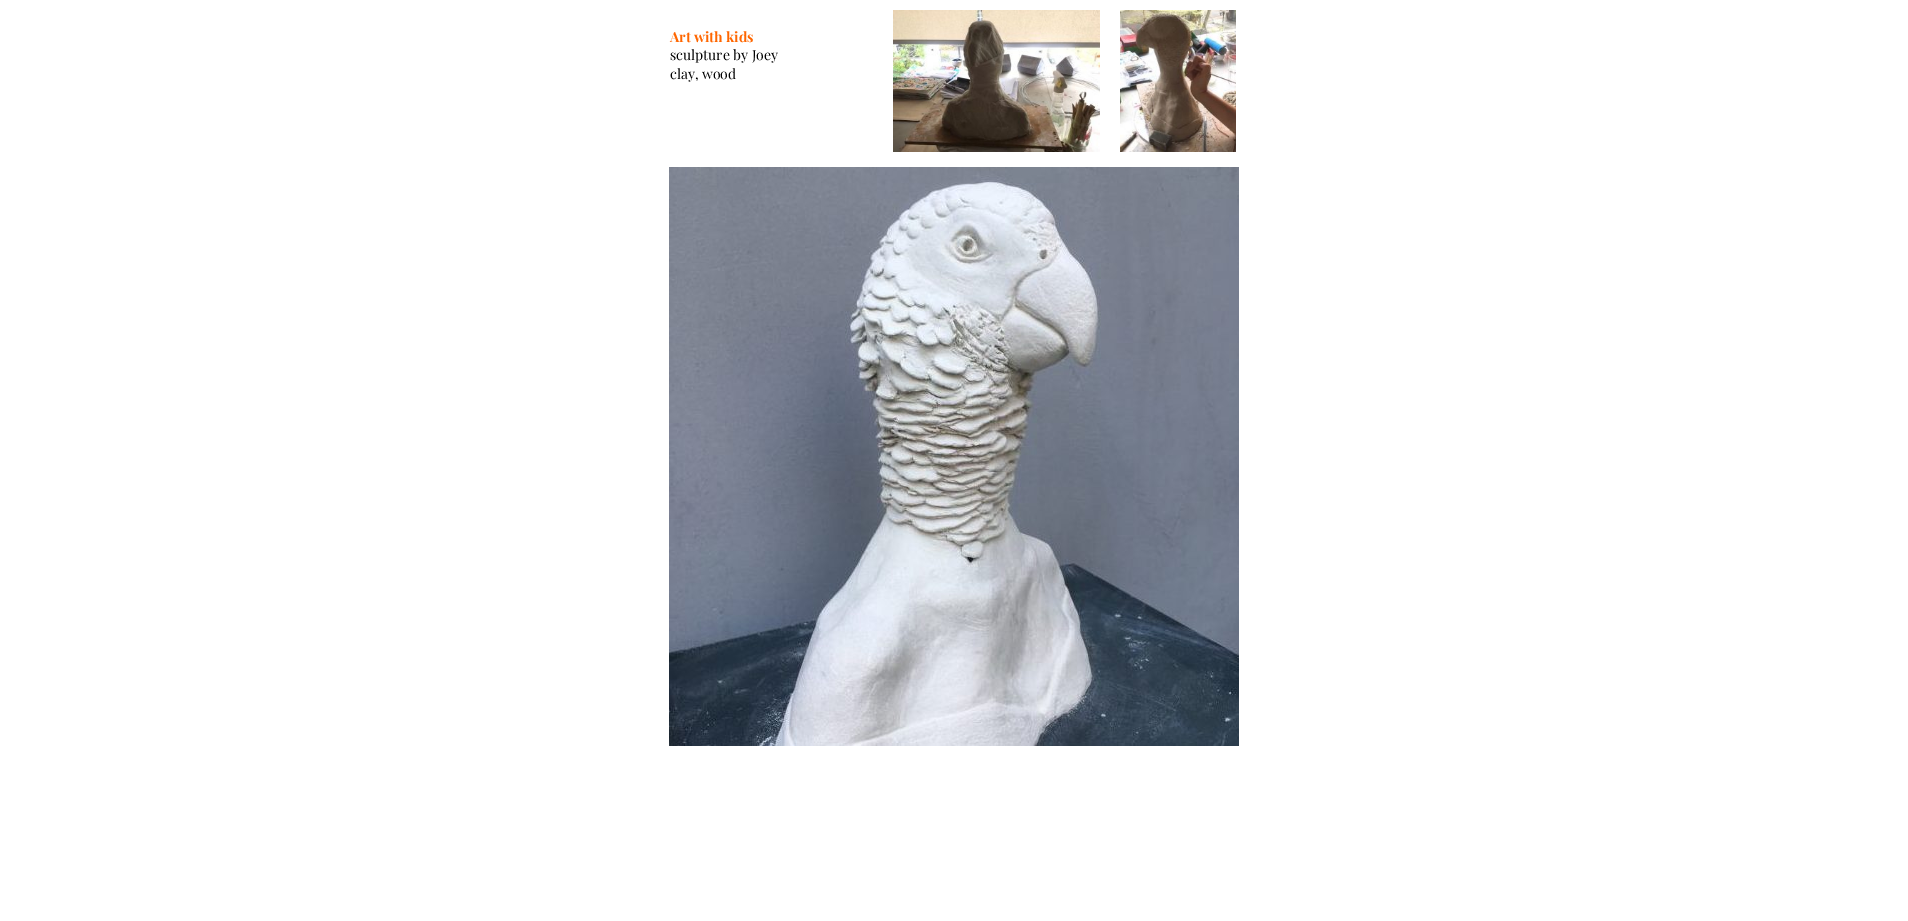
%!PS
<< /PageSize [1908 921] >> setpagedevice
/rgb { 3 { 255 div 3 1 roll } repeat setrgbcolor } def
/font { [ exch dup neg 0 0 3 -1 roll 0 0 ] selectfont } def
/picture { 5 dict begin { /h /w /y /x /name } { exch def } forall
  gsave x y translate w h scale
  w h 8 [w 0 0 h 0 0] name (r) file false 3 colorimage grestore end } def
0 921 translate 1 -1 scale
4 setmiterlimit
255 255 255 rgb
0 0 1908 921 rectfill
(img/1.rgb) 893 10 207 142 picture
(img/2.rgb) 1120 10 116 142 picture
(img/3.rgb) 669 167 570 579 picture
/PlayfairDisplay-Bold 14 font
255 102 0 rgb
670 42 moveto (Art with kids) show
/PlayfairDisplay-Regular 14 font
0 0 0 rgb
670 60 moveto (sculpture by Joey) show
670 79 moveto (clay, wood) show
showpage
